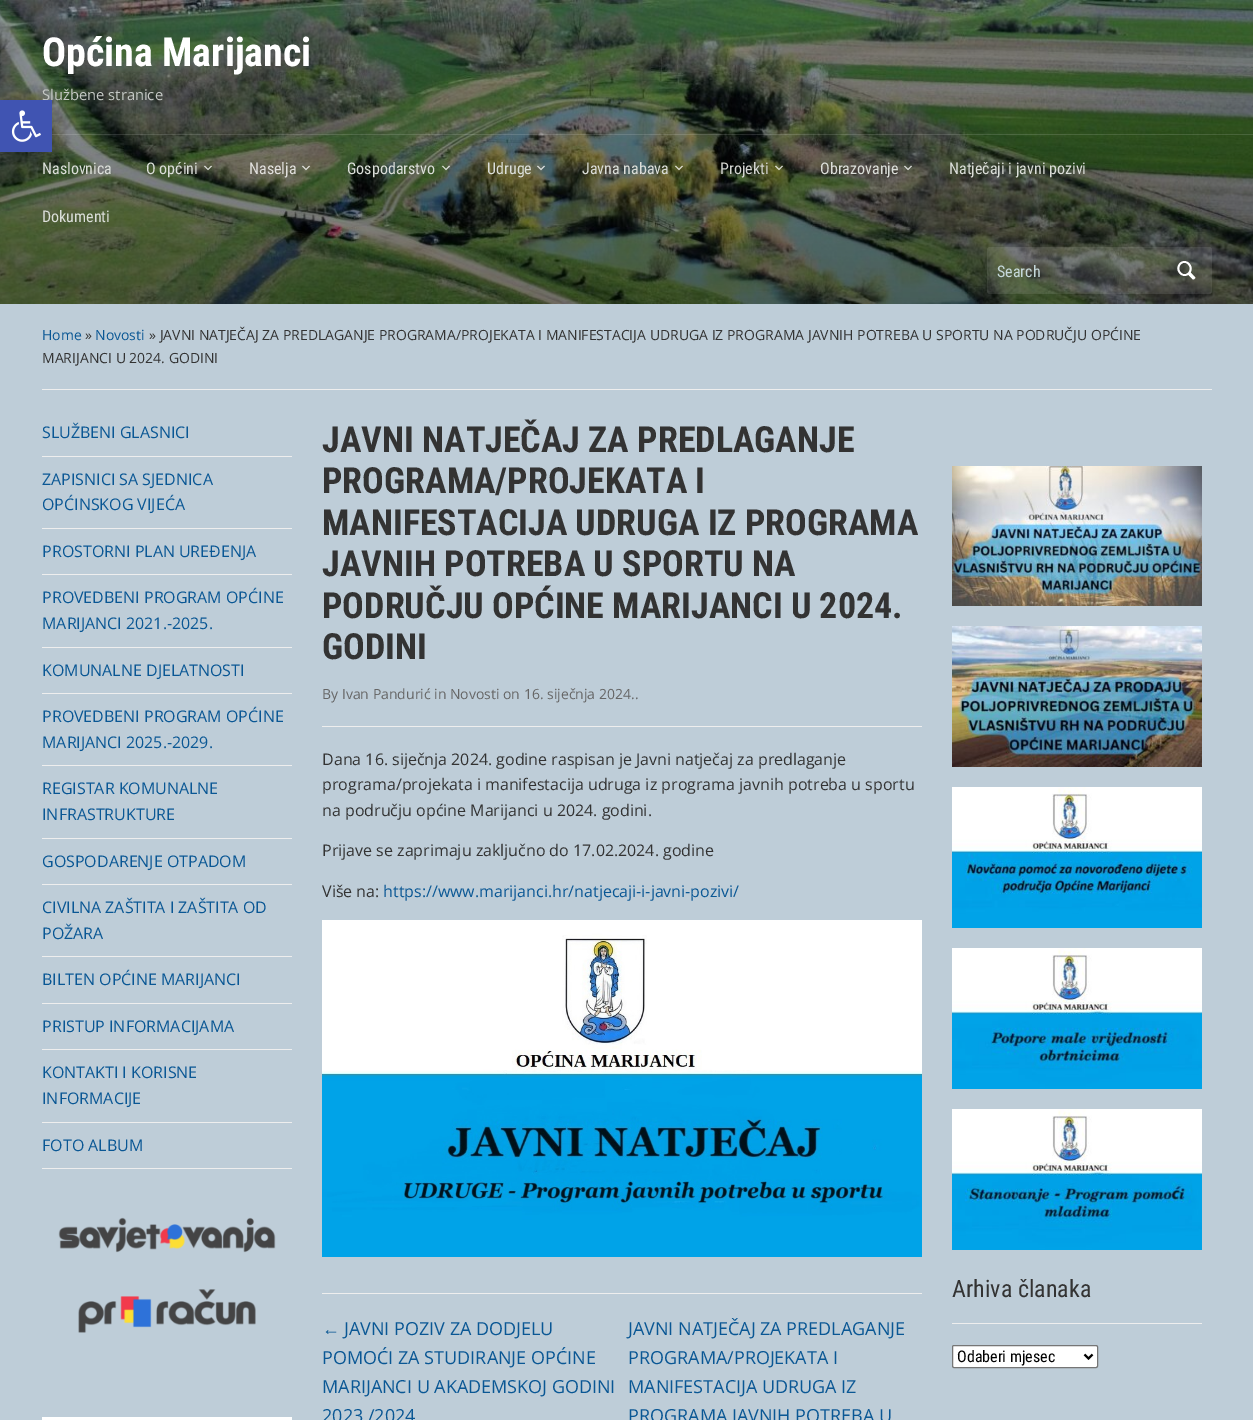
%!PS
<< /PageSize [1253 1420] /PageUsesTransparency true >> setpagedevice
/rgb { 3 { 255 div 3 1 roll } repeat setrgbcolor } def
/font { [ exch dup neg 0 0 3 -1 roll 0 0 ] selectfont } def
/alpha { dup .setfillconstantalpha .setstrokeconstantalpha } def
/roundrect { 5 dict begin { /r /h /w /y /x } { exch def } forall
  x r add y moveto x w add y 2 copy h add r arct x w add y h add x 1 index r arct
  x y h add x y r arct x y 2 copy exch w add exch r arct closepath end } def
/picture { 5 dict begin { /h /w /y /x /name } { exch def } forall
  gsave x y translate w h scale
  w h 8 [w 0 0 h 0 0] name (r) file false 3 colorimage grestore end } def
0 .pushpdf14devicefilter
0 1420 translate 1 -1 scale
4 setmiterlimit
190 205 216 rgb
0 0 1253 1420 rectfill
(img/2.rgb) 0 0 1253 304 picture
0.13 alpha
255 255 255 rgb
52 134 1201 1 rectfill
1 alpha
(img/3.rgb) 203 165 10 6 picture
(img/4.rgb) 302 165 9 6 picture
(img/5.rgb) 441 165 9 6 picture
(img/6.rgb) 537 165 9 6 picture
(img/7.rgb) 674 165 10 6 picture
(img/8.rgb) 774 165 10 6 picture
(img/9.rgb) 903 165 10 6 picture
0.1 alpha
987 247 225 47 3 roundrect fill
1 alpha
(img/10.rgb) 1177 261 19 19 picture
[
  [42 389 1170 1 238 238 238]
  [42 456 250 1 238 238 238]
  [42 528 250 1 238 238 238]
  [42 574 250 1 238 238 238]
  [42 647 250 1 238 238 238]
  [42 693 250 1 238 238 238]
  [42 765 250 1 238 238 238]
  [42 838 250 1 238 238 238]
  [42 884 250 1 238 238 238]
  [42 956 250 1 238 238 238]
  [42 1003 250 1 238 238 238]
  [42 1049 250 1 238 238 238]
  [42 1122 250 1 238 238 238]
  [42 1168 250 1 238 238 238]
] { aload pop rgb rectfill } forall
(img/11.rgb) 58 1217 218 36 picture
(img/12.rgb) 78 1289 178 44 picture
255 255 255 rgb
42 1417 250 3 rectfill
238 238 238 rgb
322 726 600 1 rectfill
(img/13.rgb) 322 920 600 337 picture
322 1293 600 1 rectfill
(img/14.rgb) 952 466 250 140 picture
(img/15.rgb) 952 626 250 141 picture
(img/16.rgb) 952 787 250 141 picture
(img/17.rgb) 952 948 250 141 picture
(img/18.rgb) 952 1109 250 141 picture
952 1323 250 1 rectfill
255 255 255 rgb
952.5 1345.5 145 22 1.5 roundrect gsave fill grestore
118 118 118 rgb
stroke
0 0 0 rgb
2 setlinewidth
1084.5 1354.5 moveto 1088.5 1358.5 lineto 1092.5 1354.5 lineto stroke
/RobotoCondensed-Bold 40 font
255 255 255 rgb
42 66 moveto (Općina Marijanci) show
/OpenSans-Regular 14.75 font
197 201 197 rgb
42 100 moveto (Službene stranice) show
64 84 178 rgb
0 100 52 52 rectfill
(img/1.rgb) 11 110 30 32 picture
/RobotoCondensed-Regular 16 font
219 222 217 rgb
42 174 moveto (Naslovnica) show
146 174 moveto (O općini) show
225 224 221 rgb
249 174 moveto (Naselja) show
219 222 217 rgb
[
  [(Gospodarstvo) 347 174]
  [(Udruge) 487 174]
  [(Javna nabava) 582 174]
] { aload pop moveto show } forall
211 212 208 rgb
720 174 moveto (Projekti) show
219 222 217 rgb
[
  [(Obrazovanje) 820 174]
  [(Natječaji i javni pozivi) 949 174]
  [(Dokumenti) 42 222]
] { aload pop moveto show } forall
198 217 219 rgb
997 277 moveto (Search) show
/OpenSans-Regular 14 font
10 87 148 rgb
42 340 moveto (Home) show
51 51 51 rgb
85 340 moveto (») show
10 87 148 rgb
95 340 moveto (Novosti) show
51 51 51 rgb
149 340 moveto (» JAVNI NATJEČAJ ZA PREDLAGANJE PROGRAMA/PROJEKATA I MANIFESTACIJA UDRUGA IZ PROGRAMA JAVNIH POTREBA U SPORTU NA PODRUČJU OPĆINE) show
42 363 moveto (MARIJANCI U 2024. GODINI) show
/OpenSans-Regular 16 font
10 87 148 rgb
[
  [(SLUŽBENI GLASNICI) 42 438]
  [(ZAPISNICI SA SJEDNICA) 42 485]
  [(OPĆINSKOG VIJEĆA) 42 510]
  [(PROSTORNI PLAN UREĐENJA) 42 557]
  [(PROVEDBENI PROGRAM OPĆINE) 42 603]
  [(MARIJANCI 2021.-2025.) 42 629]
  [(KOMUNALNE DJELATNOSTI) 42 676]
  [(PROVEDBENI PROGRAM OPĆINE) 42 722]
  [(MARIJANCI 2025.-2029.) 42 748]
  [(REGISTAR KOMUNALNE) 42 794]
  [(INFRASTRUKTURE) 42 820]
  [(GOSPODARENJE OTPADOM) 42 867]
  [(CIVILNA ZAŠTITA I ZAŠTITA OD) 42 913]
  [(POŽARA) 42 939]
  [(BILTEN OPĆINE MARIJANCI) 42 985]
  [(PRISTUP INFORMACIJAMA) 42 1032]
  [(KONTAKTI I KORISNE) 42 1078]
  [(INFORMACIJE) 42 1104]
  [(FOTO ALBUM) 42 1151]
] { aload pop moveto show } forall
/RobotoCondensed-Bold 36 font
51 51 51 rgb
[
  [(JAVNI NATJEČAJ ZA PREDLAGANJE) 322 452]
  [(PROGRAMA/PROJEKATA I) 322 493]
  [(MANIFESTACIJA UDRUGA IZ PROGRAMA) 322 535]
  [(JAVNIH POTREBA U SPORTU NA) 322 576]
  [(PODRUČJU OPĆINE MARIJANCI U 2024.) 322 618]
  [(GODINI) 322 659]
] { aload pop moveto show } forall
/OpenSans-Regular 14 font
102 102 102 rgb
322 699 moveto (By Ivan Pandurić in Novosti on 16. siječnja 2024..) show
/OpenSans-Regular 16 font
51 51 51 rgb
[
  [(Dana 16. siječnja 2024. godine raspisan je Javni natječaj za predlaganje) 322 765]
  [(programa/projekata i manifestacija udruga iz programa javnih potreba u sportu) 322 790]
  [(na području općine Marijanci u 2024. godini.) 322 816]
  [(Prijave se zaprimaju zaključno do 17.02.2024. godine) 322 856]
  [(Više na:) 322 897]
] { aload pop moveto show } forall
10 87 148 rgb
383 897 moveto (https://www.marijanci.hr/natjecaji-i-javni-pozivi/) show
/LiberationSans-Regular 18 font
322 1335 moveto (←) show
/OpenSans-Regular 18 font
[
  [(JAVNI POZIV ZA DODJELU) 344 1335]
  [(POMOĆI ZA STUDIRANJE OPĆINE) 322 1364]
  [(MARIJANCI U AKADEMSKOJ GODINI) 322 1393]
  [(2023./2024) 322 1422]
  [(JAVNI NATJEČAJ ZA PREDLAGANJE) 628 1335]
  [(PROGRAMA/PROJEKATA I) 628 1364]
  [(MANIFESTACIJA UDRUGA IZ) 628 1393]
  [(PROGRAMA JAVNIH POTREBA U) 628 1422]
] { aload pop moveto show } forall
/RobotoCondensed-Regular 24 font
51 51 51 rgb
952 1297 moveto (Arhiva članaka) show
/RobotoCondensed-Regular 16 font
0 0 0 rgb
957 1362 moveto (Odaberi mjesec) show
.poppdf14devicefilter showpage
